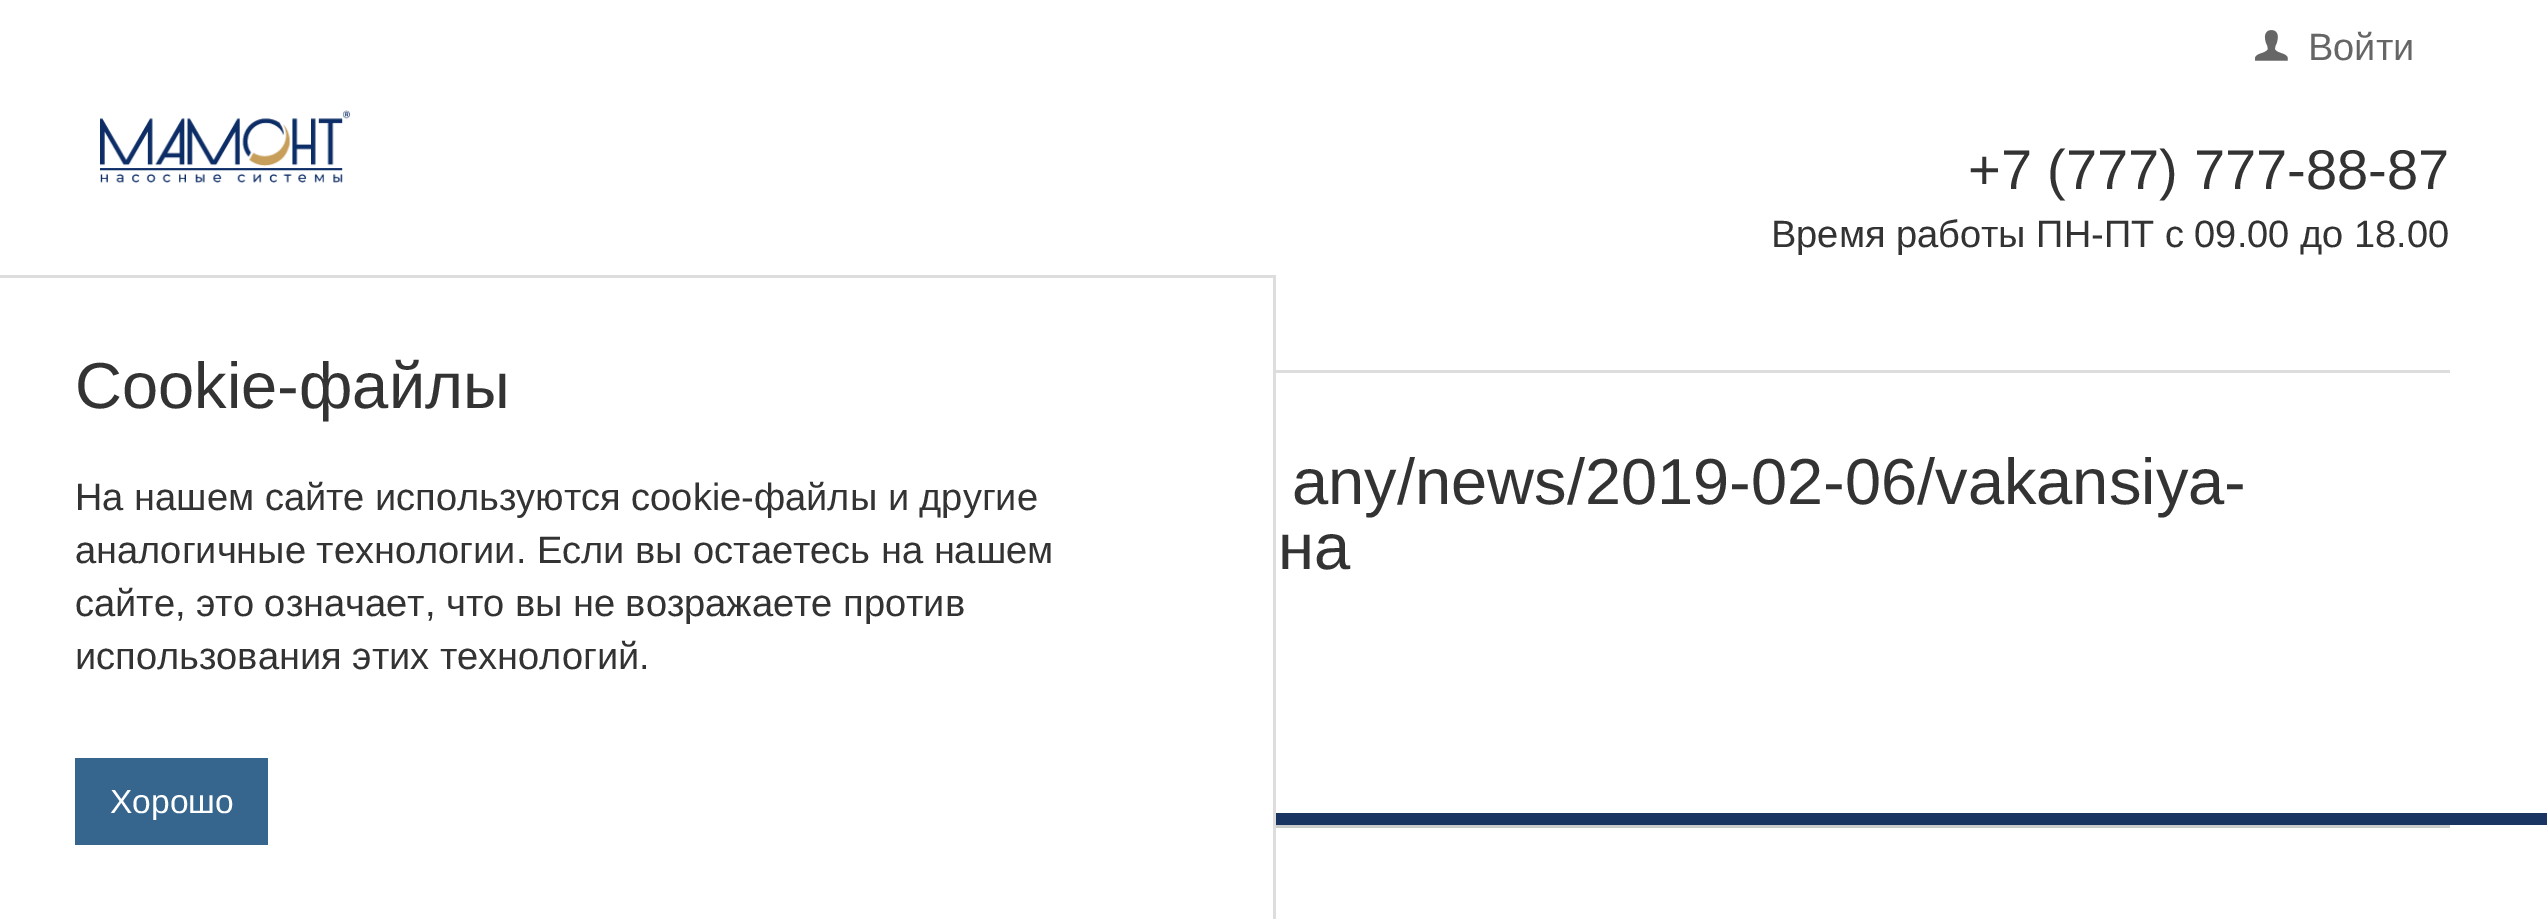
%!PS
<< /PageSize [2547 919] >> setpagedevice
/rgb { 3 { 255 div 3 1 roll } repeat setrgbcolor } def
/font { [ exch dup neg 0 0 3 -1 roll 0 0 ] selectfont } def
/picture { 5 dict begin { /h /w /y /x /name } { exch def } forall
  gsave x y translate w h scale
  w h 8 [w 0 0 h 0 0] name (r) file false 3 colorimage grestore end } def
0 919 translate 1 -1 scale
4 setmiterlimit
255 255 255 rgb
0 0 2547 919 rectfill
(img/1.rgb) 100 110 250 73 picture
(img/2.rgb) 2255 30 33 31 picture
[
  [0 275 1275 3 221 221 221]
  [1273 275 3 644 221 221 221]
  [75 758 193 87 54 101 142]
  [1276 370 1174 3 221 221 221]
  [1276 813 1271 12 27 53 99]
  [1276 825 1174 3 204 204 204]
] { aload pop rgb rectfill } forall
/LiberationSans-Regular 38 font
102 102 102 rgb
2308 60 moveto (Войти) show
/LiberationSans-Regular 56 font
51 51 51 rgb
1968 189 moveto (+7 \(777\) 777-88-87) show
/LiberationSans-Regular 38 font
1771 247 moveto (Время работы ПН-ПТ с 09.00 до 18.00) show
/LiberationSans-Regular 65 font
75 408 moveto (Cookie-файлы) show
/LiberationSans-Regular 38 font
[
  [(На нашем сайте используются cookie-файлы и другие) 75 510]
  [(аналогичные технологии. Если вы остаетесь на нашем) 75 563]
  [(сайте, это означает, что вы не возражаете против) 75 616]
  [(использования этих технологий.) 75 669]
] { aload pop moveto show } forall
/LiberationSans-Regular 33.5 font
255 255 255 rgb
110 813 moveto (Хорошо) show
/LiberationSans-Regular 65 font
51 51 51 rgb
1292 504 moveto (any/news/2019-02-06/vakansiya-) show
1278 569 moveto (на) show
showpage
